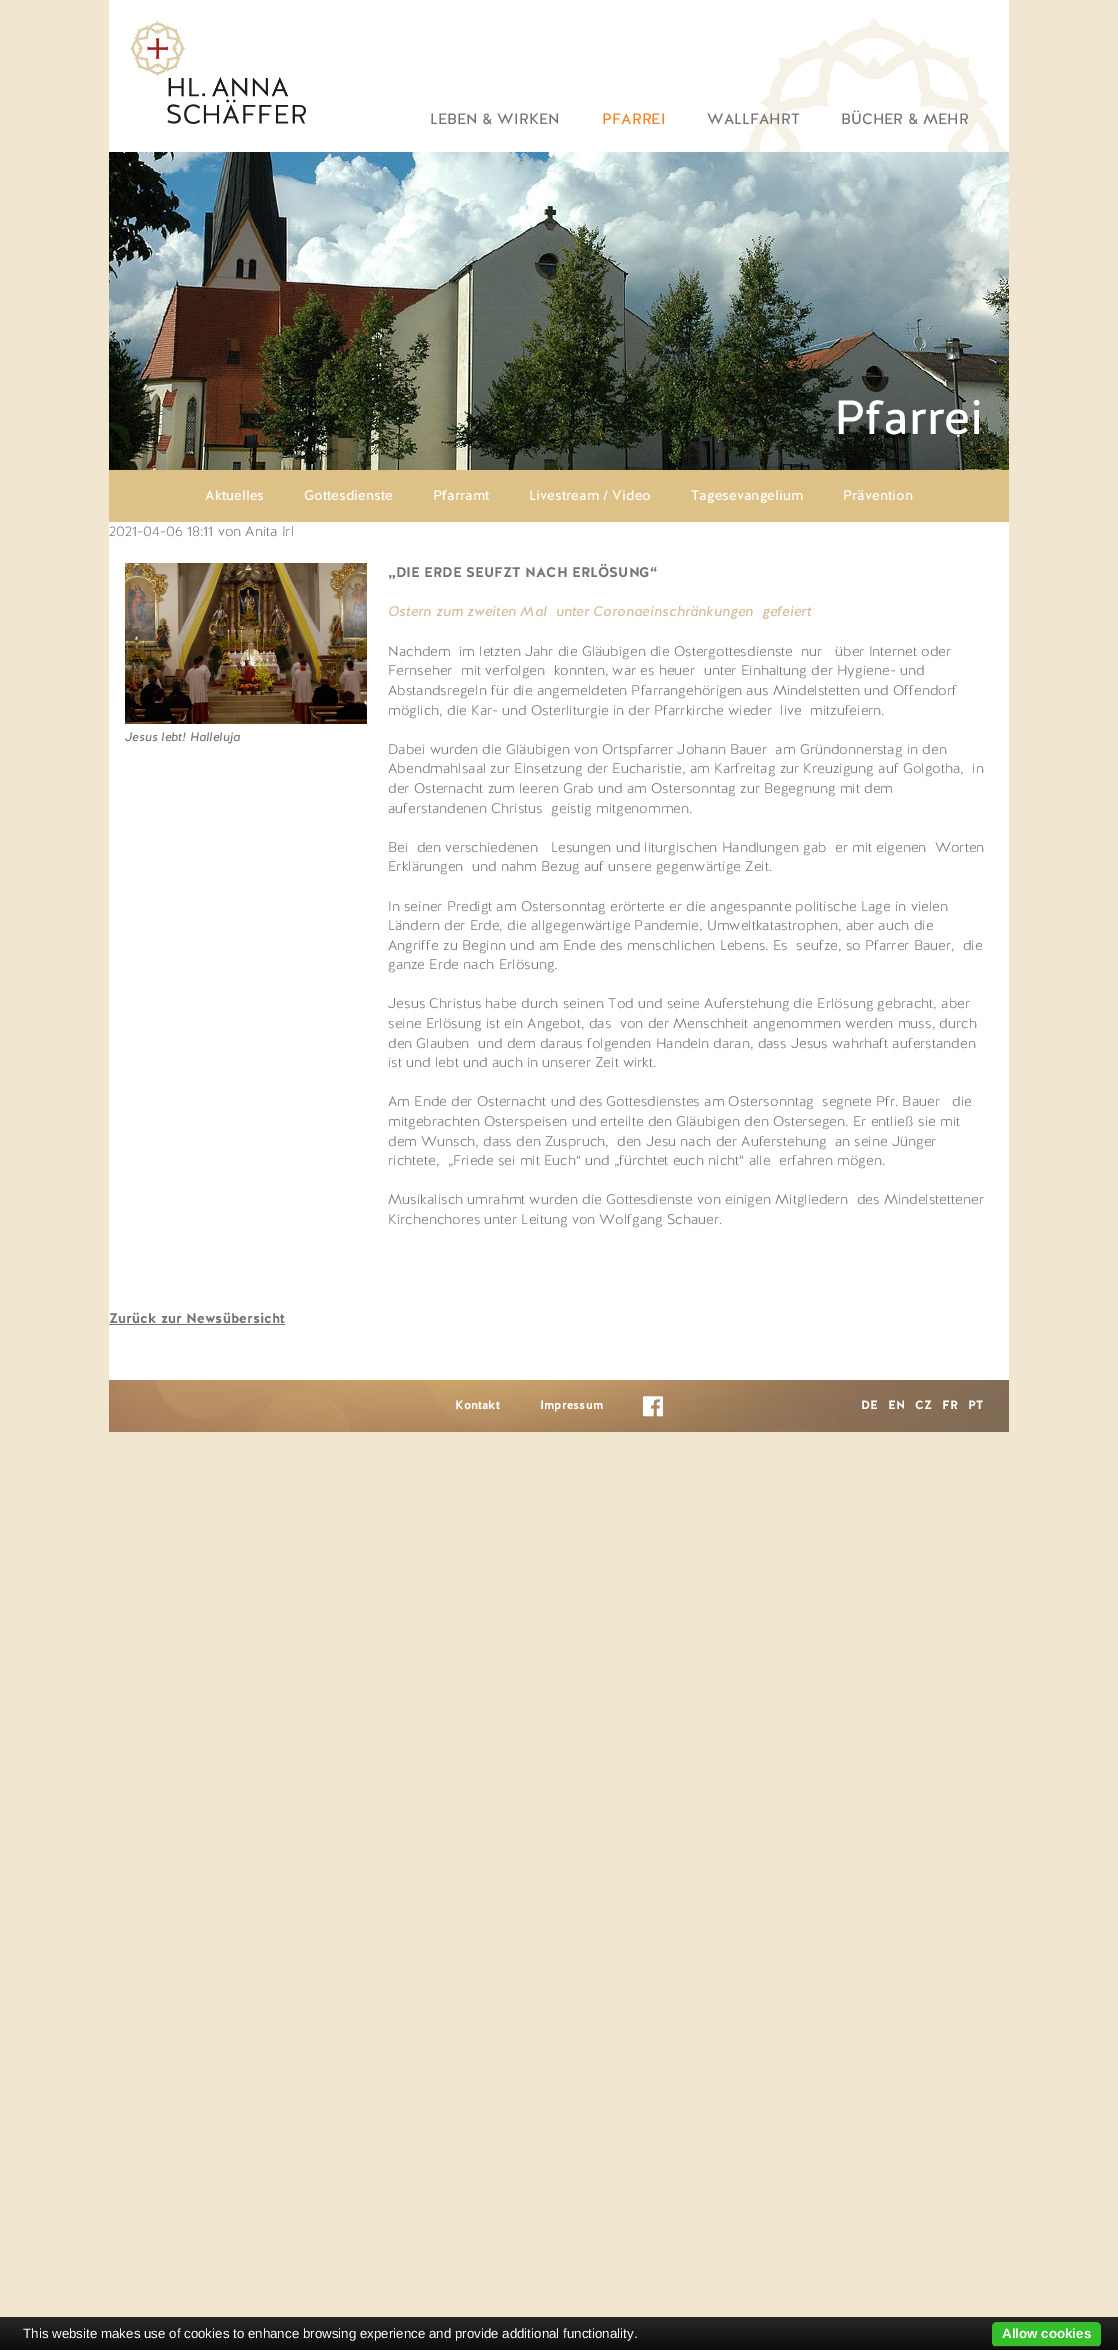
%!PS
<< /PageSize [1118 2350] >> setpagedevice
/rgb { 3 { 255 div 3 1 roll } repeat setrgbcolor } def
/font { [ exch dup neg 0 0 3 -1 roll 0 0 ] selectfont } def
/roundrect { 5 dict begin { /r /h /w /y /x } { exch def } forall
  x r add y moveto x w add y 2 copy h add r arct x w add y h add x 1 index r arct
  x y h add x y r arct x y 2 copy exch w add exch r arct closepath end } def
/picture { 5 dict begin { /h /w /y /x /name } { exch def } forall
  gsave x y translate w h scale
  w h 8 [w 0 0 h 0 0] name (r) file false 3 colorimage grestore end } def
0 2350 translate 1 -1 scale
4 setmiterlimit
241 230 207 rgb
0 0 1118 2350 rectfill
255 255 255 rgb
109 0 900 1380 rectfill
(img/1.rgb) 130 21 176 103 picture
(img/2.rgb) 740 18 269 134 picture
(img/3.rgb) 109 152 900 318 picture
221 193 135 rgb
109 470 900 52 rectfill
(img/4.rgb) 125 563 242 161 picture
115 115 115 rgb
109 1324 176 1 rectfill
(img/5.rgb) 109 1380 900 52 picture
(img/6.rgb) 643 1396 20 21 picture
gsave 0 2317 moveto 1118 2317 lineto 1118 2350 lineto 0 2350 lineto closepath clip newpath
<< /ShadingType 2 /ColorSpace /DeviceRGB /Coords [562 2317 562 2350] /Extend [true true] /Function << /FunctionType 2 /Domain [0 1] /C0 [0.161 0.157 0.153] /C1 [0.047 0.047 0.039] /N 1 >> >> shfill grestore
54 191 45 rgb
992 2322 109 25 5 roundrect fill
34 34 34 rgb
995 2346 104 1 rectfill
/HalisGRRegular-Regular 15 font
115 115 115 rgb
430 124 moveto (LEBEN & WIRKEN) show
245 130 32 rgb
602 124 moveto (PFARREI) show
115 115 115 rgb
707 124 moveto (WALLFAHRT) show
841 124 moveto (BÜCHER & MEHR) show
/HalisGRRegular-Regular 48 font
255 255 255 rgb
834 434 moveto (Pfarrei) show
/HalisGRRegular-Regular 14 font
[
  [(Aktuelles) 205 500]
  [(Gottesdienste) 304 500]
  [(Pfarramt) 433 500]
  [(Livestream / Video) 529 500]
  [(Tagesevangelium) 691 500]
  [(Prävention) 843 500]
] { aload pop moveto show } forall
/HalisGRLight-Light 14 font
115 115 115 rgb
109 536 moveto (2021-04-06 18:11 von Anita Irl) show
/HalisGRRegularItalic-Regular 12 font
125 741 moveto (Jesus lebt! Halleluja) show
/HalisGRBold-Bold 14 font
388 577 moveto („DIE ERDE SEUFZT NACH ERLÖSUNG“) show
/HalisGRRegularItalic-Regular 14 font
210 191 154 rgb
388 616 moveto (Ostern zum zweiten Mal  unter Coronaeinschränkungen  gefeiert) show
/HalisGRLight-Light 14 font
115 115 115 rgb
[
  [(Nachdem  im letzten Jahr die Gläubigen die Ostergottesdienste  nur   über Internet oder) 388 656]
  [(Fernseher  mit verfolgen  konnten, war es heuer  unter Einhaltung der Hygiene- und) 388 675]
  [(Abstandsregeln für die angemeldeten Pfarrangehörigen aus Mindelstetten und Offendorf) 388 695]
  [(möglich, die Kar- und Osterliturgie in der Pfarrkirche wieder  live  mitzufeiern.) 388 715]
  [(Dabei wurden die Gläubigen von Ortspfarrer Johann Bauer  am Gründonnerstag in den) 388 754]
  [(Abendmahlsaal zur Einsetzung der Eucharistie, am Karfreitag zur Kreuzigung auf Golgotha,  in) 388 773]
  [(der Osternacht zum leeren Grab und am Ostersonntag zur Begegnung mit dem) 388 793]
  [(auferstandenen Christus  geistig mitgenommen.) 388 813]
  [(Bei  den verschiedenen   Lesungen und liturgischen Handlungen gab  er mit eigenen  Worten) 388 852]
  [(Erklärungen  und nahm Bezug auf unsere gegenwärtige Zeit.) 388 871]
  [(In seiner Predigt am Ostersonntag erörterte er die angespannte politische Lage in vielen) 388 911]
  [(Ländern der Erde, die allgegenwärtige Pandemie, Umweltkatastrophen, aber auch die) 388 930]
  [(Angriffe zu Beginn und am Ende des menschlichen Lebens. Es  seufze, so Pfarrer Bauer,  die) 388 950]
  [(ganze Erde nach Erlösung.) 388 969]
  [(Jesus Christus habe durch seinen Tod und seine Auferstehung die Erlösung gebracht, aber) 388 1008]
  [(seine Erlösung ist ein Angebot, das  von der Menschheit angenommen werden muss, durch) 388 1028]
  [(den Glauben  und dem daraus folgenden Handeln daran, dass Jesus wahrhaft auferstanden) 388 1048]
  [(ist und lebt und auch in unserer Zeit wirkt.) 388 1067]
  [(Am Ende der Osternacht und des Gottesdienstes am Ostersonntag  segnete Pfr. Bauer   die) 388 1106]
  [(mitgebrachten Osterspeisen und erteilte den Gläubigen den Ostersegen. Er entließ sie mit) 388 1126]
  [(dem Wunsch, dass den Zuspruch,  den Jesu nach der Auferstehung  an seine Jünger) 388 1146]
  [(richtete,  „Friede sei mit Euch“ und „fürchtet euch nicht“ alle  erfahren mögen.) 388 1165]
  [(Musikalisch umrahmt wurden die Gottesdienste von einigen Mitgliedern  des Mindelstettener) 388 1204]
  [(Kirchenchores unter Leitung von Wolfgang Schauer.) 388 1224]
] { aload pop moveto show } forall
/HalisGRBold-Bold 14 font
109 1323 moveto (Zurück zur Newsübersicht) show
/HalisGRBold-Bold 12 font
255 255 255 rgb
[
  [(Kontakt) 455 1409]
  [(Impressum) 540 1409]
  [(DE) 861 1409]
  [(EN) 888 1409]
  [(CZ) 915 1409]
  [(FR) 942 1409]
  [(PT) 968 1409]
] { aload pop moveto show } forall
/LiberationSans-Regular 13.35 font
23 2338 moveto (This website makes use of cookies to enhance browsing experience and provide additional functionality.) show
/LiberationSans-Bold 13.35 font
1002 2338 moveto (Allow cookies) show
showpage
